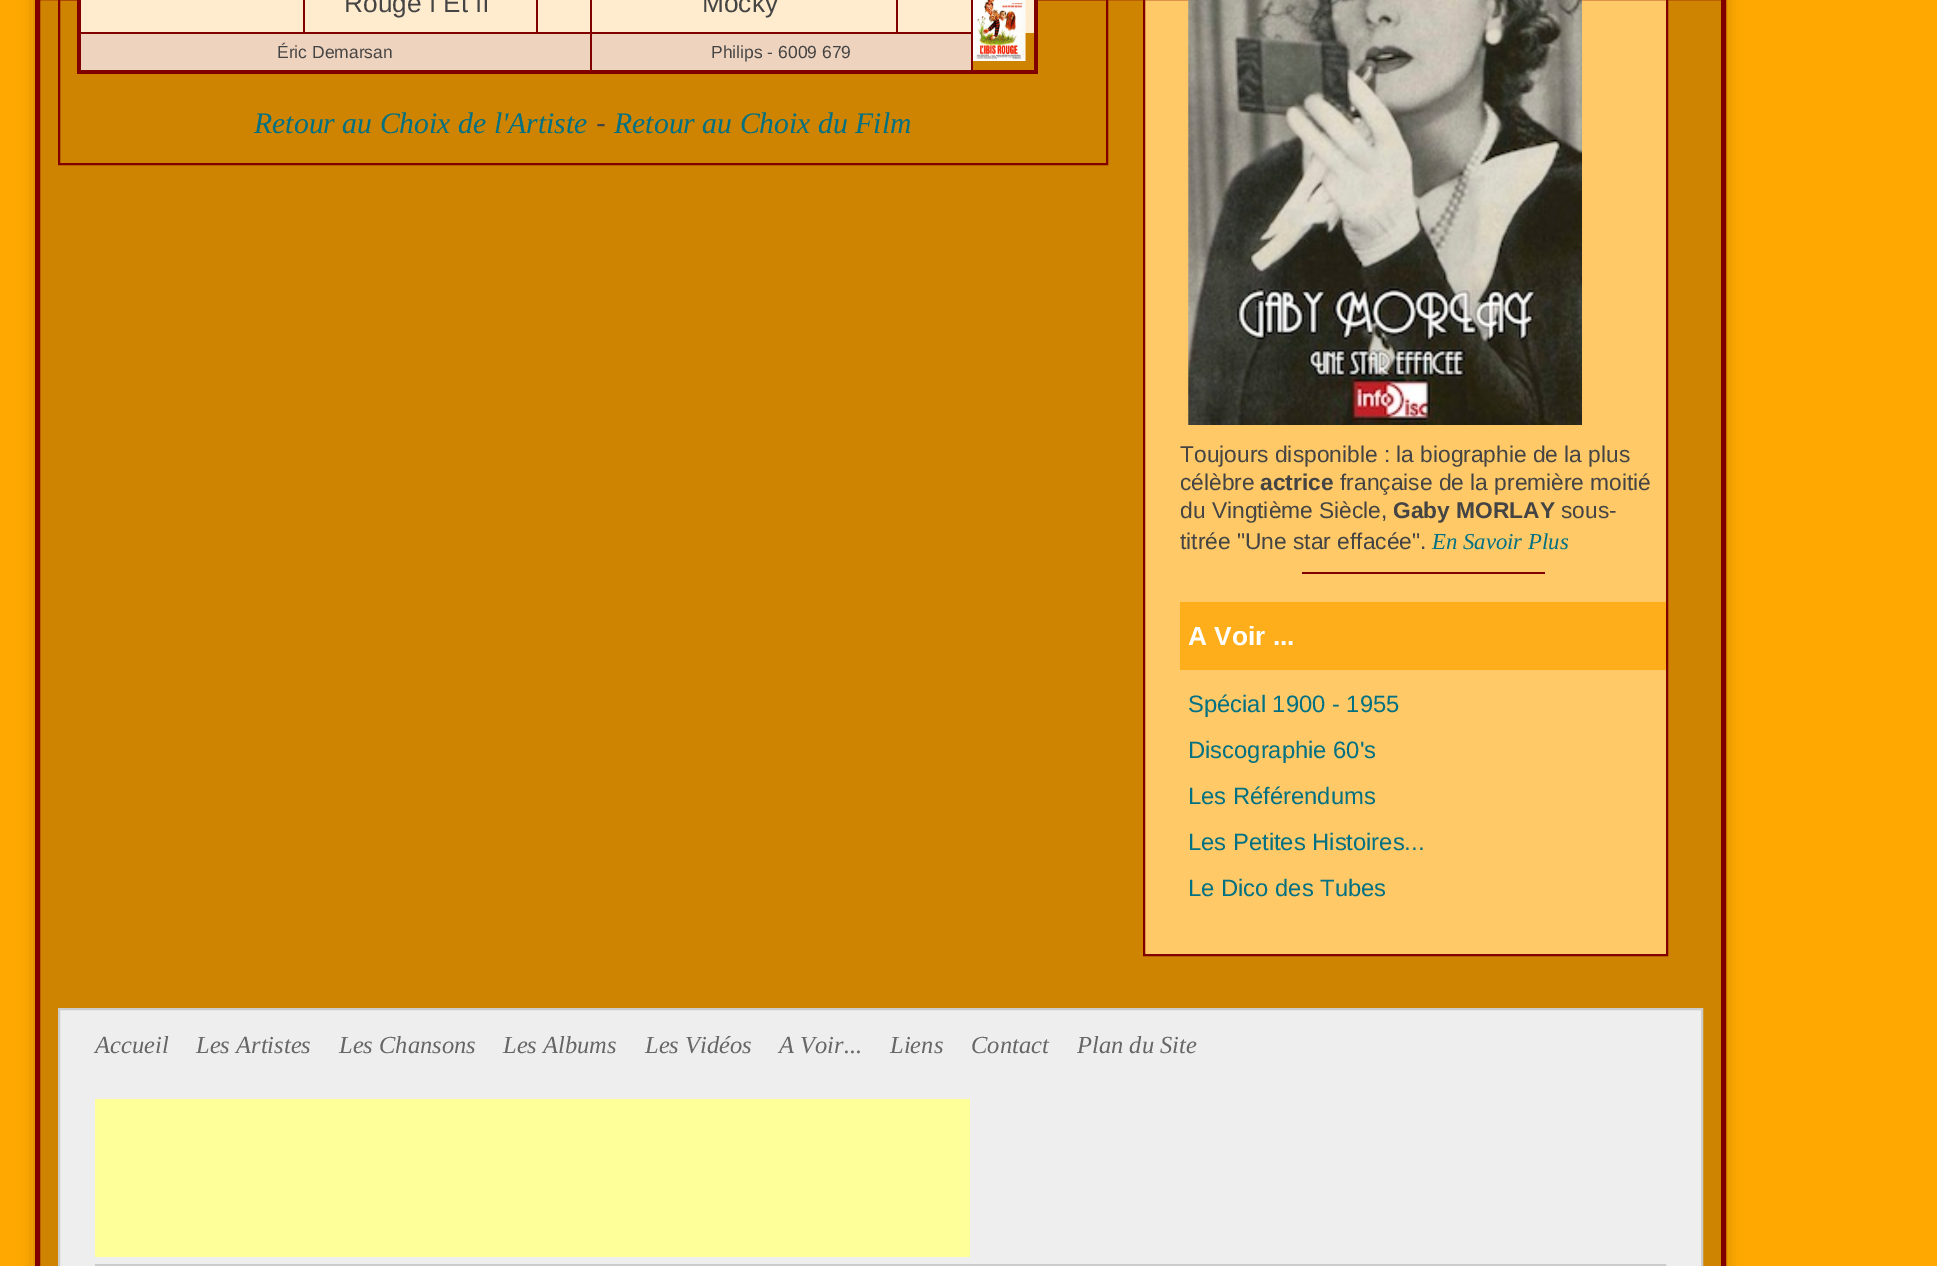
%!PS
<< /PageSize [1937 1266] /PageUsesTransparency true >> setpagedevice
/rgb { 3 { 255 div 3 1 roll } repeat setrgbcolor } def
/font { [ exch dup neg 0 0 3 -1 roll 0 0 ] selectfont } def
/alpha { dup .setfillconstantalpha .setstrokeconstantalpha } def
/roundrect { 5 dict begin { /r /h /w /y /x } { exch def } forall
  x r add y moveto x w add y 2 copy h add r arct x w add y h add x 1 index r arct
  x y h add x y r arct x y 2 copy exch w add exch r arct closepath end } def
/shadow { 12 dict begin { /a /b /q /h /w /y /x } { exch def } forall gsave /was 0 def
  9 -2 -9 { dup b mul 4 div /e exch def 1 sub .425 mul 2.718 exch exp 1 add a .99 .min exch div /now exch def
    1 1 now sub 1 was sub div sub alpha /was now def
    w h .min e 2 mul add 0 gt { x e sub y e sub w e 2 mul add h e 2 mul add
      q e add b .6 mul add w h .min 2 div e add .min 0 .max roundrect fill } if } for grestore end } def
/picture { 5 dict begin { /h /w /y /x /name } { exch def } forall
  gsave x y translate w h scale
  w h 8 [w 0 0 h 0 0] name (r) file false 3 colorimage grestore end } def
0 .pushpdf14devicefilter
0 1266 translate 1 -1 scale
4 setmiterlimit
255 168 1 rgb
0 0 1937 1266 rectfill
0 0 0 rgb
35 -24 1691 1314 0 8 0.2 shadow
206 132 0 rgb
37.5 -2.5 moveto 1723.5 -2.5 lineto 1723.5 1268.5 lineto 37.5 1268.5 lineto closepath gsave fill grestore
128 0 0 rgb
5 setlinewidth
stroke
2 setlinewidth
59 -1 1048 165 rectstroke
[
  [1034 0 4 74 128 0 0]
  [81 0 953 33 255 235 205]
  [590 32 383 2 128 0 0]
  [971 0 2 72 128 0 0]
  [590 32 2 40 128 0 0]
  [77 70 961 4 128 0 0]
  [79 32 513 2 128 0 0]
  [77 0 4 74 128 0 0]
  [303 0 2 33 128 0 0]
  [536 0 2 33 128 0 0]
  [590 0 2 33 128 0 0]
  [896 0 2 33 128 0 0]
] { aload pop rgb rectfill } forall
(img/1.rgb) 973 0 53 61 picture
238 211 190 rgb
81 34 509 36 rectfill
592 34 379 36 rectfill
255 201 103 rgb
1144 -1 moveto 1667 -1 lineto 1667 955 lineto 1144 955 lineto closepath gsave fill grestore
128 0 0 rgb
stroke
(img/2.rgb) 1188 0 394 425 picture
1302 572 243 2 rectfill
255 174 27 rgb
1180 602 486 68 rectfill
238 238 238 rgb
59 1009 moveto 1702 1009 lineto 1702 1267 lineto 59 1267 lineto closepath gsave fill grestore
204 204 204 rgb
stroke
255 255 153 rgb
95 1099 875 158 rectfill
204 204 204 rgb
96 1265 1569 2 rectstroke
/LiberationSans-Regular 26.25 font
68 68 68 rgb
344 12 moveto (Rouge I Et Ii) show
702 12 moveto (Mocky) show
/LiberationSans-Regular 17.5 font
277 58 moveto (Éric Demarsan) show
711 58 moveto (Philips - 6009 679) show
/LiberationSerif-Italic 29.75 font
0 112 130 rgb
254 133 moveto (Retour au Choix de l'Artiste) show
/LiberationSans-Regular 29.75 font
68 68 68 rgb
596 133 moveto (-) show
/LiberationSerif-Italic 29.75 font
0 112 130 rgb
614 133 moveto (Retour au Choix du Film) show
/LiberationSans-Regular 22.75 font
68 68 68 rgb
1180 462 moveto (Toujours disponible : la biographie de la plus) show
1180 490 moveto (célèbre) show
/LiberationSans-Bold 22.75 font
1260 490 moveto (actrice) show
/LiberationSans-Regular 22.75 font
1340 490 moveto (française de la première moitié) show
1180 518 moveto (du Vingtième Siècle,) show
/LiberationSans-Bold 22.75 font
1393 518 moveto (Gaby MORLAY) show
/LiberationSans-Regular 22.75 font
1561 518 moveto (sous-) show
1180 549 moveto (titrée "Une star effacée".) show
/LiberationSerif-Italic 22.75 font
0 112 130 rgb
1432 549 moveto (En Savoir Plus) show
/LiberationSans-Bold 26.25 font
255 255 255 rgb
1188 645 moveto (A Voir ...) show
/LiberationSans-Regular 23.75 font
0 112 130 rgb
[
  [(Spécial 1900 - 1955) 1188 712]
  [(Discographie 60's) 1188 758]
  [(Les Référendums) 1188 804]
  [(Les Petites Histoires...) 1188 850]
  [(Le Dico des Tubes) 1188 896]
] { aload pop moveto show } forall
/LiberationSerif-Italic 24.5 font
102 102 102 rgb
[
  [(Accueil) 95 1053]
  [(Les Artistes) 196 1053]
  [(Les Chansons) 339 1053]
  [(Les Albums) 503 1053]
  [(Les Vidéos) 645 1053]
  [(A Voir...) 779 1053]
  [(Liens) 890 1053]
  [(Contact) 971 1053]
  [(Plan du Site) 1077 1053]
] { aload pop moveto show } forall
.poppdf14devicefilter showpage
